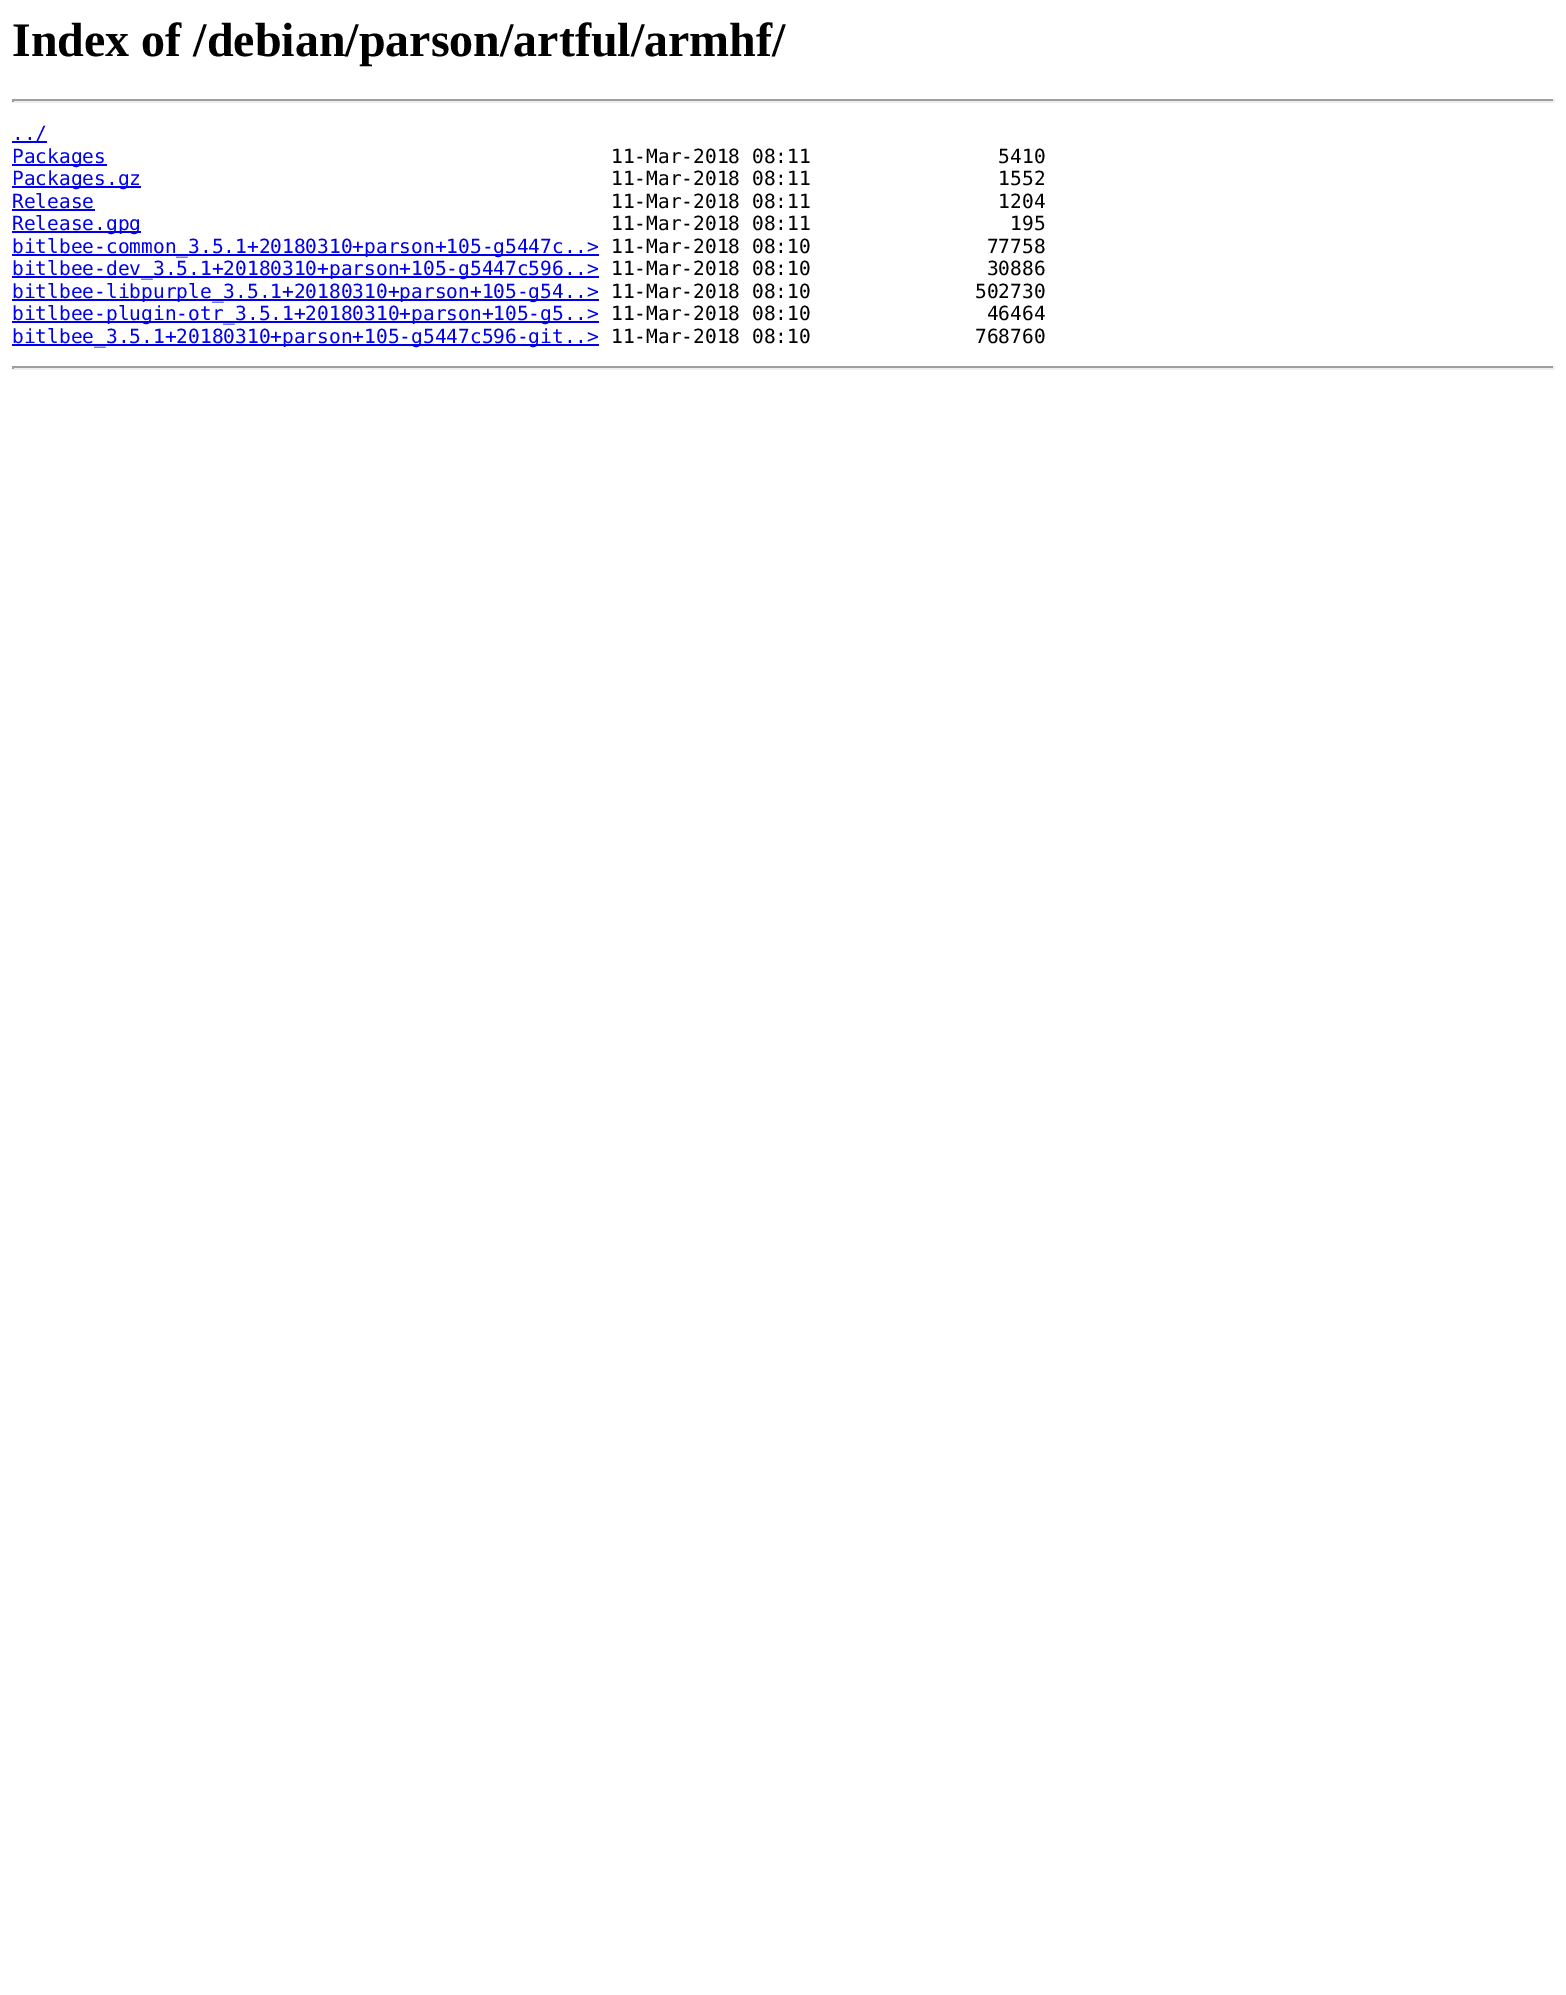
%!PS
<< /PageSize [1566 1995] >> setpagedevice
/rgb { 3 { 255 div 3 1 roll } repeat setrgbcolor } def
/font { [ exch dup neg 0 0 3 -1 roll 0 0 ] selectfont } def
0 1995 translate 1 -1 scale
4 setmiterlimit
255 255 255 rgb
0 0 1566 1995 rectfill
[
  [12 99 1542 2 159 159 159]
  [1553 99 2 3 238 238 238]
  [12 101 1542 2 238 238 238]
  [12 99 2 3 159 159 159]
  [12 141 35 2 0 0 238]
  [12 164 95 2 0 0 238]
  [12 186 129 2 0 0 238]
  [12 209 83 2 0 0 238]
  [12 231 129 2 0 0 238]
  [12 254 587 2 0 0 238]
  [12 276 587 2 0 0 238]
  [12 299 587 2 0 0 238]
  [12 321 587 2 0 0 238]
  [12 344 587 2 0 0 238]
  [12 366 1542 2 159 159 159]
  [1553 366 2 3 238 238 238]
  [12 368 1542 2 238 238 238]
  [12 366 2 3 159 159 159]
] { aload pop rgb rectfill } forall
/LiberationSerif-Bold 48 font
0 0 0 rgb
12 56 moveto (Index of /debian/parson/artful/armhf/) show
/DejaVuSansMono-Regular 19.5 font
0 0 238 rgb
12 140 moveto (../) show
12 163 moveto (Packages) show
0 0 0 rgb
611 163 moveto (11-Mar-2018 08:11                5410) show
0 0 238 rgb
12 185 moveto (Packages.gz) show
0 0 0 rgb
611 185 moveto (11-Mar-2018 08:11                1552) show
0 0 238 rgb
12 208 moveto (Release) show
0 0 0 rgb
611 208 moveto (11-Mar-2018 08:11                1204) show
0 0 238 rgb
12 230 moveto (Release.gpg) show
0 0 0 rgb
611 230 moveto (11-Mar-2018 08:11                 195) show
0 0 238 rgb
12 253 moveto (bitlbee-common_3.5.1+20180310+parson+105-g5447c..>) show
0 0 0 rgb
611 253 moveto (11-Mar-2018 08:10               77758) show
0 0 238 rgb
12 275 moveto (bitlbee-dev_3.5.1+20180310+parson+105-g5447c596..>) show
0 0 0 rgb
611 275 moveto (11-Mar-2018 08:10               30886) show
0 0 238 rgb
12 298 moveto (bitlbee-libpurple_3.5.1+20180310+parson+105-g54..>) show
0 0 0 rgb
611 298 moveto (11-Mar-2018 08:10              502730) show
0 0 238 rgb
12 320 moveto (bitlbee-plugin-otr_3.5.1+20180310+parson+105-g5..>) show
0 0 0 rgb
611 320 moveto (11-Mar-2018 08:10               46464) show
0 0 238 rgb
12 343 moveto (bitlbee_3.5.1+20180310+parson+105-g5447c596-git..>) show
0 0 0 rgb
611 343 moveto (11-Mar-2018 08:10              768760) show
showpage
